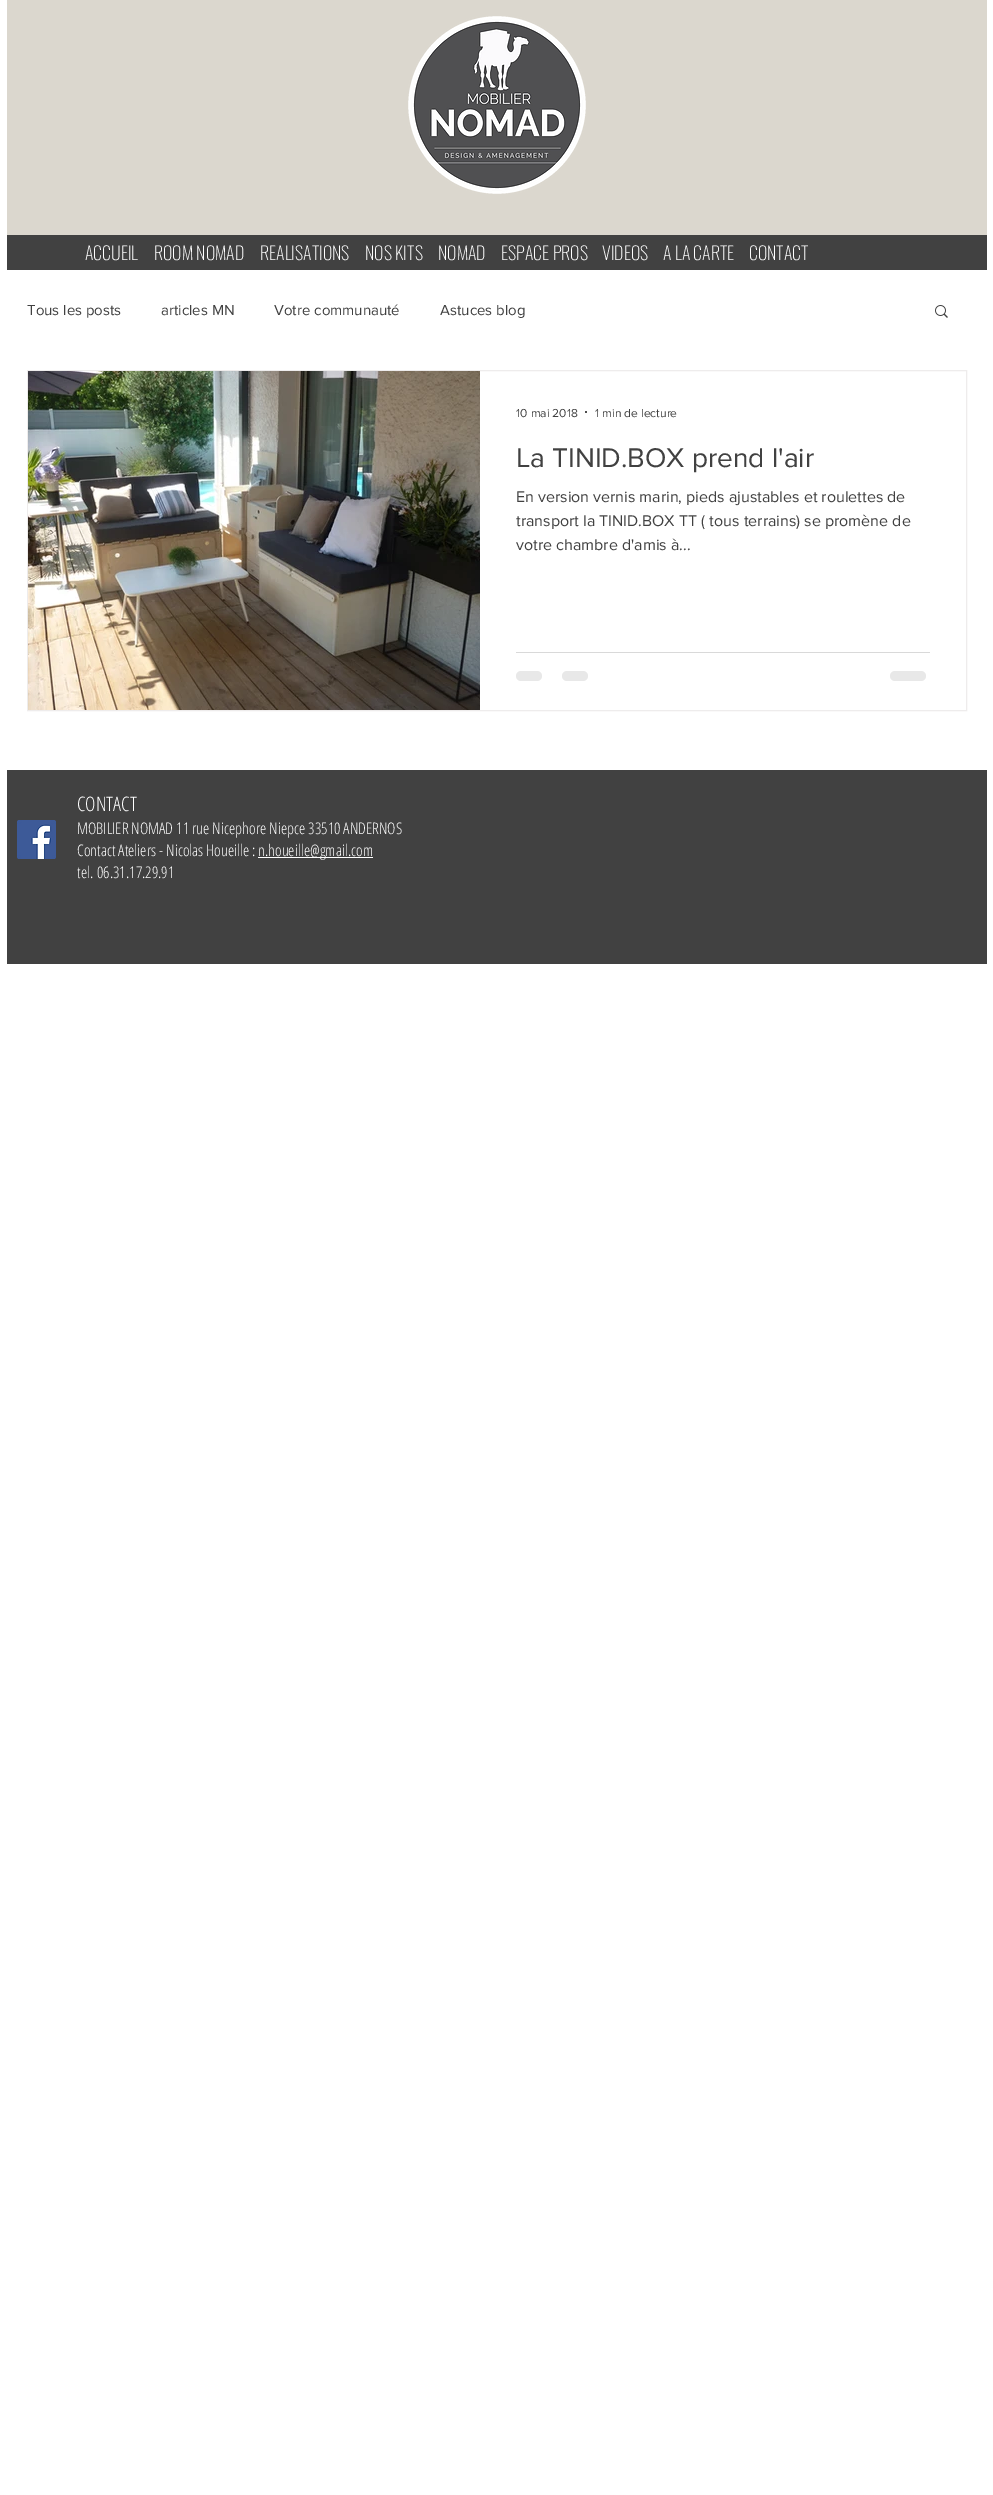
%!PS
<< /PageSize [993 2495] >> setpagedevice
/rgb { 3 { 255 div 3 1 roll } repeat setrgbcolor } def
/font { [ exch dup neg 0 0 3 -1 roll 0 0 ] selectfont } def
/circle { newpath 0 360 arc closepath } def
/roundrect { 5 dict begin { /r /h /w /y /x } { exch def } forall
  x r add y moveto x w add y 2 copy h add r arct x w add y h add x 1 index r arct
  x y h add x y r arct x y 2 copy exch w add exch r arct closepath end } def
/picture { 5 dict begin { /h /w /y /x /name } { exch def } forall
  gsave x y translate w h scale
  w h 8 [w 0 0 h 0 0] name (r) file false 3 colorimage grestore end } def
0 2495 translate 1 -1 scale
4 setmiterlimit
255 255 255 rgb
0 0 993 2495 rectfill
219 215 206 rgb
7 0 980 235 rectfill
(img/1.rgb) 408 16 178 178 picture
65 65 65 rgb
7 235 980 35 rectfill
(img/2.rgb) 935 305 13 13 picture
238 236 236 rgb
27.5 370.5 939 340 rectstroke
(img/3.rgb) 28 371 452 339 picture
65 65 65 rgb
586 412 1 circle fill
217 217 217 rgb
516 652 414 1 rectfill
232 232 232 rgb
516 671 26 10 5 roundrect fill
562 671 26 10 5 roundrect fill
890 671 36 10 5 roundrect fill
65 65 65 rgb
7 770 980 194 rectfill
(img/4.rgb) 17 820 39 39 picture
255 255 255 rgb
258 857 115 1 rectfill
/Oswald-ExtraLight 18 font
[
  [(ACCUEIL) 85 260]
  [(ROOM NOMAD) 154 260]
  [(REALISATIONS) 260 260]
  [(NOS KITS) 365 260]
  [(NOMAD) 438 260]
  [(ESPACE PROS) 501 260]
  [(VIDEOS) 602 260]
  [(A LA CARTE) 663 260]
  [(CONTACT) 749 260]
] { aload pop moveto show } forall
/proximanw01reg-Regular 15 font
65 65 65 rgb
[
  [(Tous les posts) 27 315]
  [(articles MN) 161 315]
  [(Votre communauté) 274 315]
  [(Astuces blog) 440 315]
] { aload pop moveto show } forall
/proximanw01reg-Regular 12 font
516 417 moveto (10 mai 2018) show
595 417 moveto (1 min de lecture) show
/proximanw01reg-Regular 28 font
516 467 moveto (La TINID.BOX prend l'air) show
/proximanw01reg-Regular 16 font
[
  [(En version vernis marin, pieds ajustables et roulettes de) 516 502]
  [(transport la TINID.BOX TT \( tous terrains\) se promène de) 516 526]
  [(votre chambre d'amis à...) 516 550]
] { aload pop moveto show } forall
/OpenSansCondensed-Light 20 font
255 255 255 rgb
77 811 moveto (CONTACT) show
/OpenSansCondensed-Light 16 font
[
  [(MOBILIER NOMAD 11 rue Nicephore Niepce 33510 ANDERNOS) 77 834]
  [(Contact Ateliers - Nicolas Houeille :) 77 856]
  [(n.houeille@gmail.com) 258 856]
  [(tel.) 77 878]
  [(06.31.17.29.91) 97 878]
] { aload pop moveto show } forall
showpage
